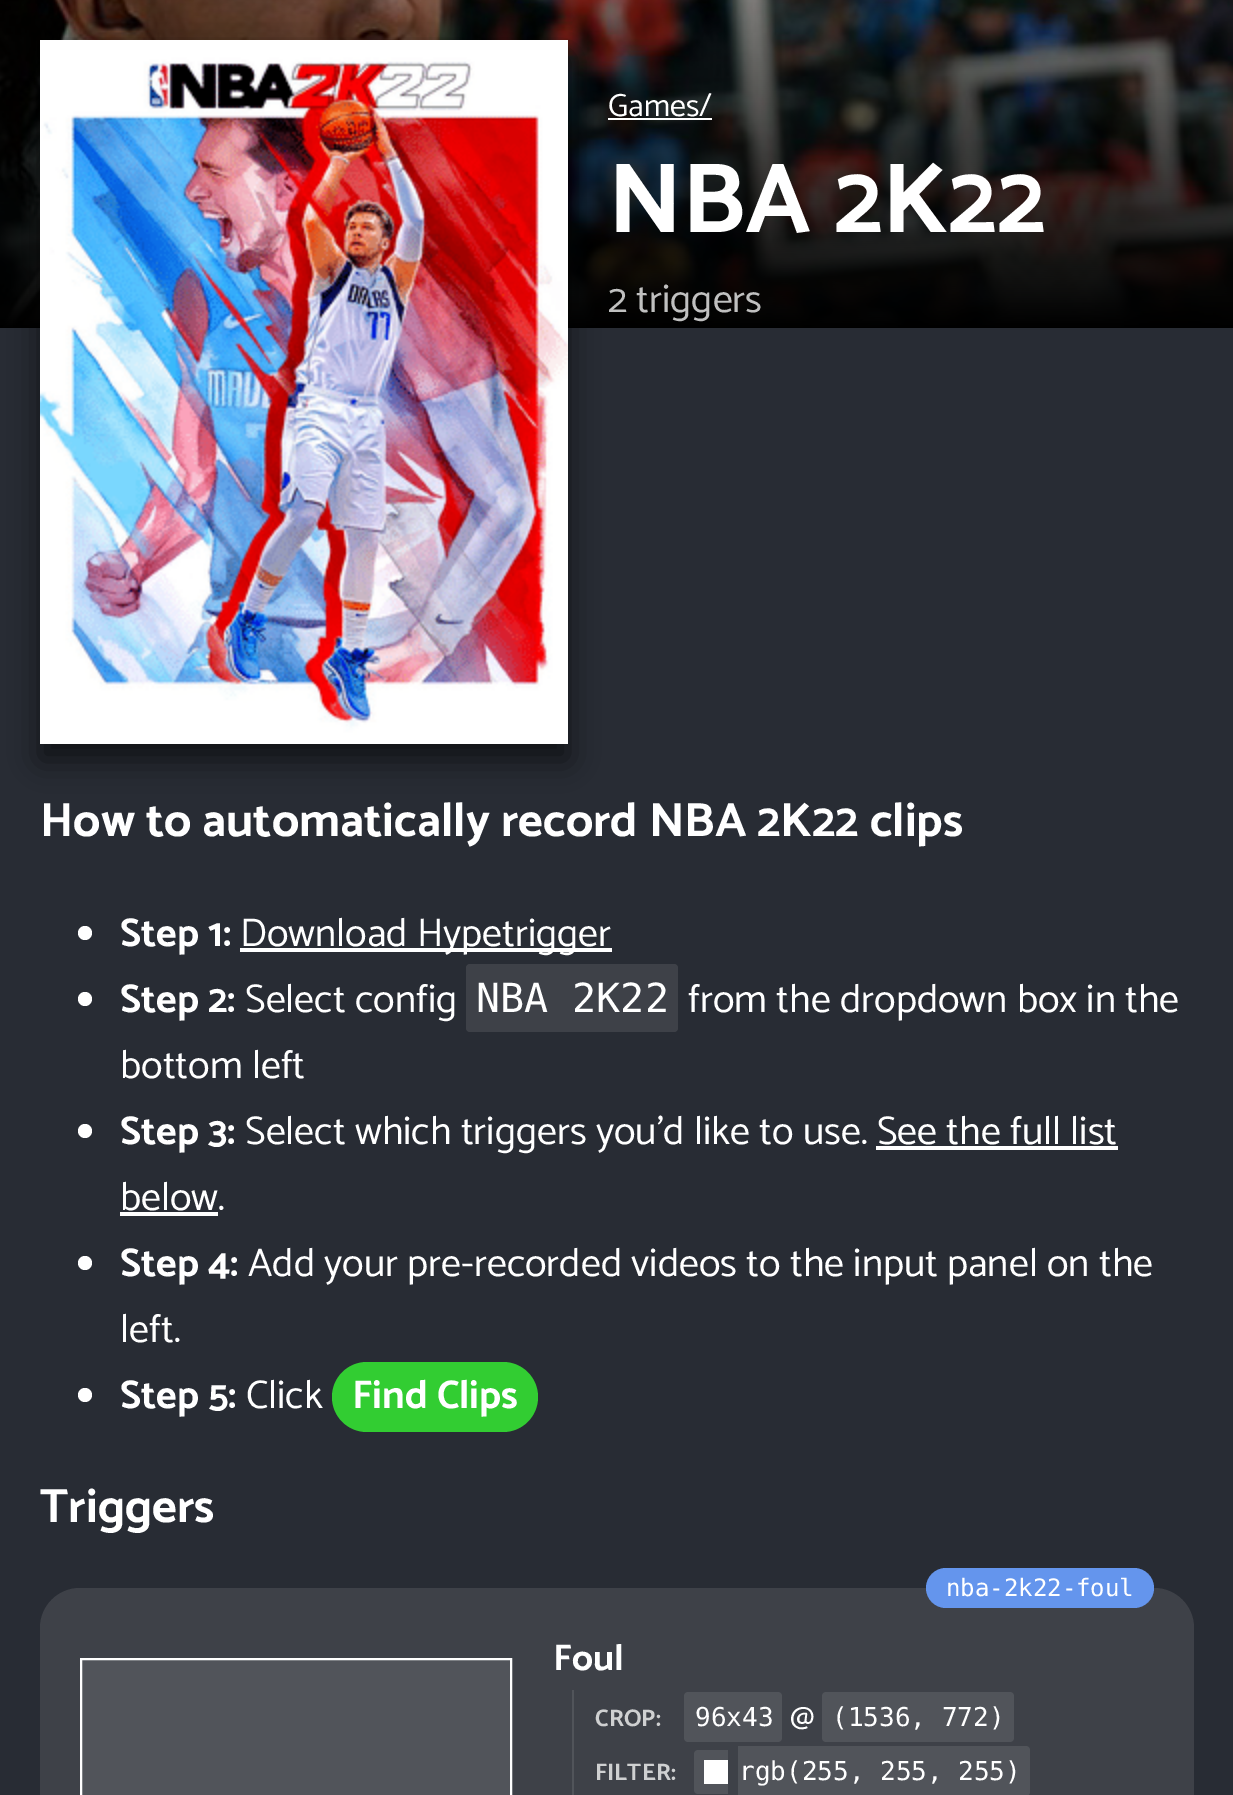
%!PS
<< /PageSize [1233 1795] /PageUsesTransparency true >> setpagedevice
/rgb { 3 { 255 div 3 1 roll } repeat setrgbcolor } def
/font { [ exch dup neg 0 0 3 -1 roll 0 0 ] selectfont } def
/alpha { dup .setfillconstantalpha .setstrokeconstantalpha } def
/circle { newpath 0 360 arc closepath } def
/roundrect { 5 dict begin { /r /h /w /y /x } { exch def } forall
  x r add y moveto x w add y 2 copy h add r arct x w add y h add x 1 index r arct
  x y h add x y r arct x y 2 copy exch w add exch r arct closepath end } def
/shadow { 12 dict begin { /a /b /q /h /w /y /x } { exch def } forall gsave /was 0 def
  9 -2 -9 { dup b mul 4 div /e exch def 1 sub .425 mul 2.718 exch exp 1 add a .99 .min exch div /now exch def
    1 1 now sub 1 was sub div sub alpha /was now def
    w h .min e 2 mul add 0 gt { x e sub y e sub w e 2 mul add h e 2 mul add
      q e add b .6 mul add w h .min 2 div e add .min 0 .max roundrect fill } if } for grestore end } def
/picture { 5 dict begin { /h /w /y /x /name } { exch def } forall
  gsave x y translate w h scale
  w h 8 [w 0 0 h 0 0] name (r) file false 3 colorimage grestore end } def
0 .pushpdf14devicefilter
0 1795 translate 1 -1 scale
4 setmiterlimit
40 44 52 rgb
0 0 1233 1795 rectfill
(img/1.rgb) 0 0 1233 328 picture
0 0 0 rgb
40 56 528 704 0 15 0.6 shadow
(img/2.rgb) 40 40 528 704 picture
255 255 255 rgb
608 118 104 2 rectfill
85 933 7 circle fill
240 948 372 4 rectfill
85 999 7 circle fill
62 65 72 rgb
466 964 212 68 4 roundrect fill
255 255 255 rgb
85 1131 7 circle fill
876 1146 242 4 rectfill
120 1212 98 4 rectfill
85 1263 7 circle fill
85 1395 7 circle fill
50 205 50 rgb
332 1362 206 70 35 roundrect fill
62 65 72 rgb
40 1588 1154 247 40 roundrect fill
81 84 90 rgb
81 1659 moveto 511 1659 lineto 511 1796 lineto 81 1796 lineto closepath gsave fill grestore
255 255 255 rgb
2 setlinewidth
stroke
100 149 237 rgb
926 1568 228 40 20 roundrect fill
81 84 90 rgb
572 1690 2 105 rectfill
688 1692 moveto 726 1692 lineto 726 1742 lineto 688 1742 lineto 686 1742 684 1740 684 1738 curveto 684 1696 lineto 684 1694 686 1692 688 1692 curveto closepath fill
726 1692 16 50 rectfill
742 1692 moveto 778 1692 lineto 780 1692 782 1694 782 1696 curveto 782 1738 lineto 782 1740 780 1742 778 1742 curveto 742 1742 lineto closepath fill
826 1692 moveto 848 1692 lineto 848 1742 lineto 826 1742 lineto 824 1742 822 1740 822 1738 curveto 822 1696 lineto 822 1694 824 1692 826 1692 curveto closepath fill
848 1692 140 50 rectfill
988 1692 moveto 1010 1692 lineto 1012 1692 1014 1694 1014 1696 curveto 1014 1738 lineto 1014 1740 1012 1742 1010 1742 curveto 988 1742 lineto closepath fill
698 1750 moveto 728 1750 lineto 728 1794 lineto 698 1794 lineto 696 1794 694 1792 694 1790 curveto 694 1754 lineto 694 1752 696 1750 698 1750 curveto closepath fill
738 1746 moveto 1026 1746 lineto 1028 1746 1030 1748 1030 1750 curveto 1030 1792 lineto 1030 1794 1028 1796 1026 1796 curveto 738 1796 lineto closepath fill
255 255 255 rgb
704 1760 24 24 rectfill
/Catamaran-Regular 32 font
608 116 moveto (Games/) show
/Catamaran-Bold 100 font
608 232 moveto (NBA 2K22) show
/Catamaran-Regular 40 font
192 192 192 rgb
608 312 moveto (2 trigger) show
745 312 moveto (s) show
/Catamaran-Bold 48 font
255 255 255 rgb
40 836 moveto (How to automatically record NBA 2K22 clips) show
/Catamaran-Bold 40 font
120 946 moveto (Step 1:) show
/Catamaran-Regular 40 font
240 946 moveto (Download Hypetrigger) show
/Catamaran-Bold 40 font
120 1012 moveto (Step 2:) show
/Catamaran-Regular 40 font
245 1012 moveto (Select config) show
/DejaVuSansMono-Regular 40 font
476 1012 moveto (NBA 2K22) show
/Catamaran-Regular 40 font
688 1012 moveto (from the dropdown box in the) show
120 1078 moveto (bottom left) show
/Catamaran-Bold 40 font
120 1144 moveto (Step 3:) show
/Catamaran-Regular 40 font
245 1144 moveto (Select which triggers you'd like to use. See the full list) show
120 1210 moveto (below.) show
/Catamaran-Bold 40 font
120 1276 moveto (Step 4:) show
/Catamaran-Regular 40 font
248 1276 moveto (Add your pre-recorded videos to the input panel on the) show
120 1342 moveto (left.) show
/Catamaran-Bold 40 font
120 1408 moveto (Step 5:) show
/Catamaran-Regular 40 font
246 1408 moveto (Click) show
/Catamaran-Bold 40 font
352 1408 moveto (Find Clips) show
/Catamaran-Bold 48 font
40 1522 moveto (Triggers) show
/DejaVuSansMono-Regular 24 font
946 1596 moveto (nba-2k22-foul) show
/Catamaran-Bold 37 font
553 1670 moveto (Foul) show
/Catamaran-Bold 24 font
207 208 209 rgb
595 1726 moveto (CROP:) show
/DejaVuSansMono-Regular 26 font
255 255 255 rgb
695 1726 moveto (96x43) show
/Catamaran-Regular 32 font
790 1726 moveto (@) show
/DejaVuSansMono-Regular 26 font
832 1726 moveto (\(1536, 772\)) show
/Catamaran-Bold 24 font
207 208 209 rgb
595 1780 moveto (FILTER:) show
/DejaVuSansMono-Regular 26 font
255 255 255 rgb
739 1780 moveto (rgb\(255, 255, 255\)) show
.poppdf14devicefilter showpage
